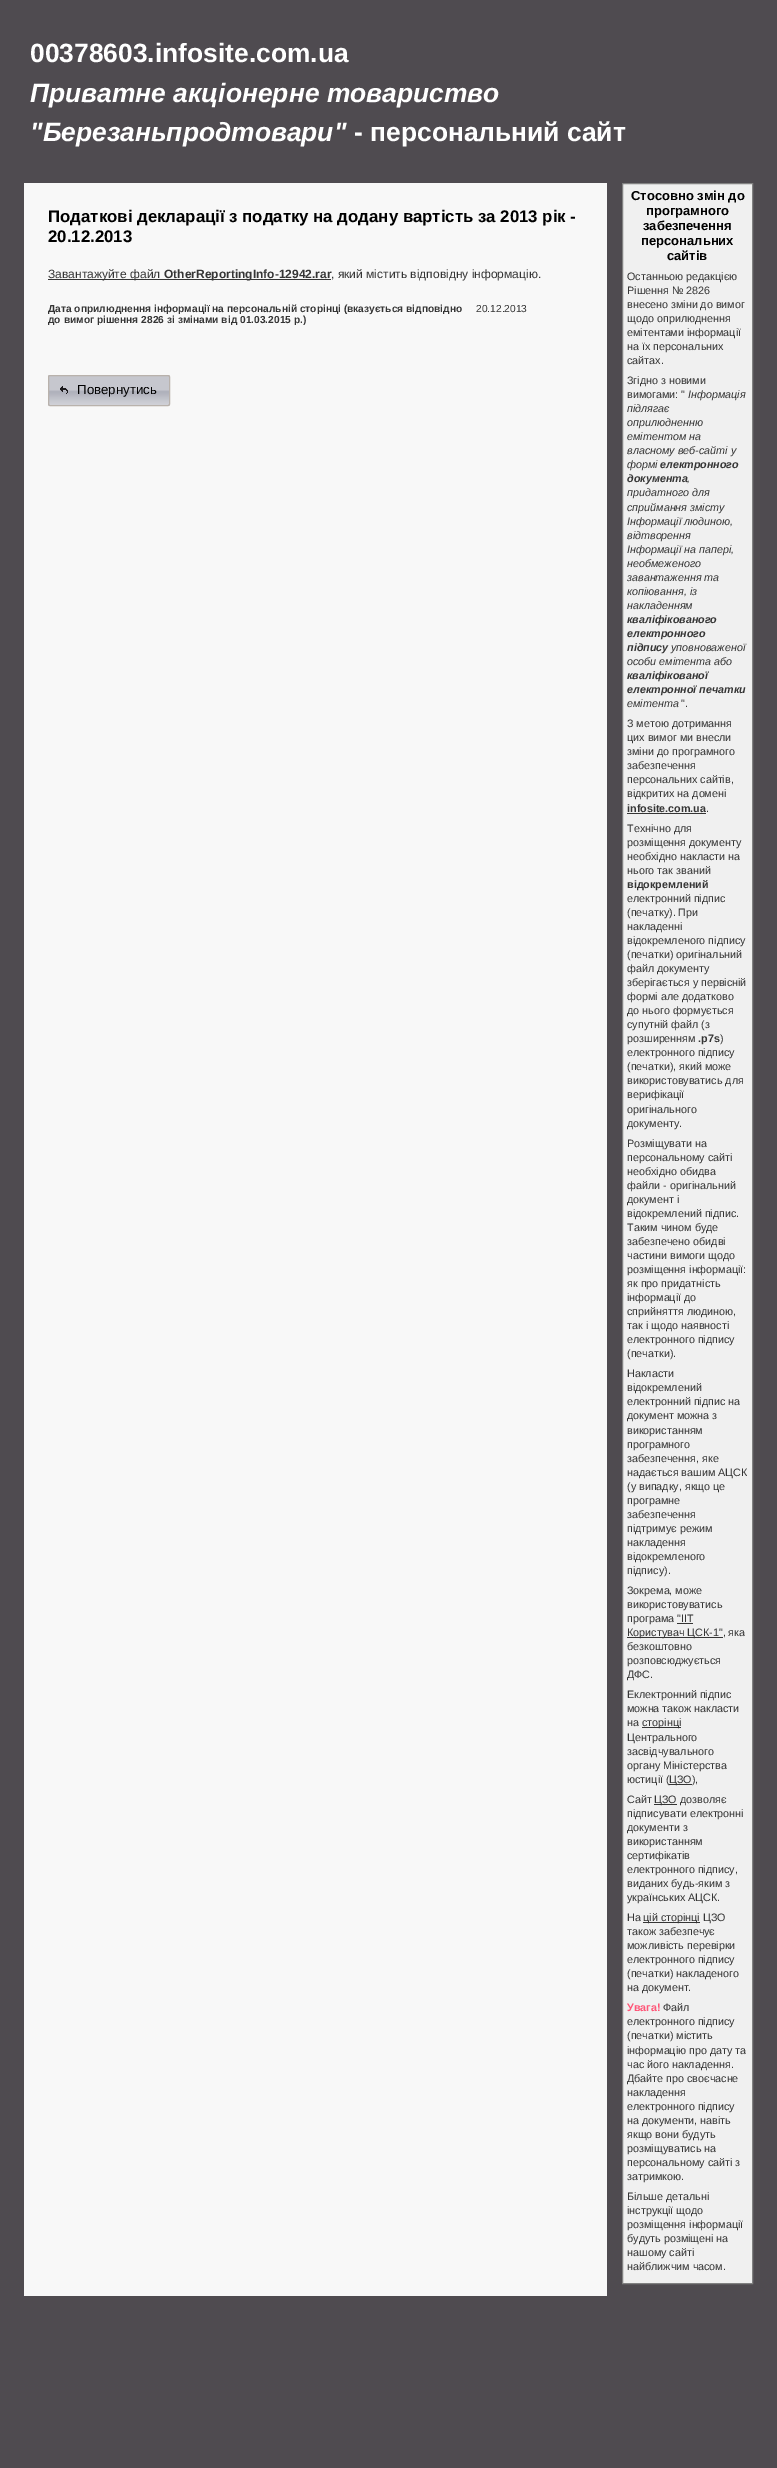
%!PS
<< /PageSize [777 2468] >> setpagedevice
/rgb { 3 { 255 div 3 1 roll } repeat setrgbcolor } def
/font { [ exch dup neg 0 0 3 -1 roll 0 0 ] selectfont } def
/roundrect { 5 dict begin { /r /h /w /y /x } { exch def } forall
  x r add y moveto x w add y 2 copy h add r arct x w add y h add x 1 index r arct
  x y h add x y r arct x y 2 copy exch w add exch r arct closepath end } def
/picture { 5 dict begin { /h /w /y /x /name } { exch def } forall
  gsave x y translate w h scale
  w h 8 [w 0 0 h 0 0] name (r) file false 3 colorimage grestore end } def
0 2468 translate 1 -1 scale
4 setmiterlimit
79 75 80 rgb
0 0 777 2468 rectfill
248 248 248 rgb
24 183 583 2113 rectfill
53 53 53 rgb
48 279 283 1 rectfill
(img/1.rgb) 48 375 122 31 picture
185 178 172 rgb
48.5 375.5 121 30 1.5 roundrect stroke
(img/2.rgb) 60 386 8 8 picture
240 240 240 rgb
622.5 183.5 moveto 752.5 183.5 lineto 752.5 2283.5 lineto 622.5 2283.5 lineto closepath gsave fill grestore
129 129 129 rgb
stroke
[
  [627 813 79 1 53 53 53]
  [677 1623 16 1 53 53 53]
  [627 1637 96 1 53 53 53]
  [642 1727 39 1 53 53 53]
  [669 1784 23 1 53 53 53]
  [654 1804 23 1 53 53 53]
  [643 1922 57 1 53 53 53]
] { aload pop rgb rectfill } forall
/LiberationSans-Bold 26.4 font
255 255 255 rgb
30 62 moveto (00378603.infosite.com.ua) show
/LiberationSans-BoldItalic 26.4 font
30 102 moveto (Приватне акцiонерне товариство) show
30 141 moveto ("Березаньпродтовари") show
/LiberationSans-Bold 26.4 font
354 141 moveto (- персональний сайт) show
/LiberationSans-Bold 16.8 font
0 0 0 rgb
48 222 moveto (Податкові декларації з податку на додану вартість за 2013 рік -) show
48 242 moveto (20.12.2013) show
/LiberationSans-Regular 12 font
53 53 53 rgb
48 278 moveto (Завантажуйте файл) show
/LiberationSans-Bold 12 font
164 278 moveto (OtherReportingInfo-12942.rar) show
/LiberationSans-Regular 12 font
331 278 moveto (, який містить відповідну інформацію.) show
/LiberationSans-Bold 10.2 font
48 312 moveto (Дата оприлюднення інформації на персональній сторінці \(вказується відповідно) show
48 323 moveto (до вимог рішення 2826 зі змінами від 01.03.2015 р.\)) show
/LiberationSans-Regular 10.2 font
476 312 moveto (20.12.2013) show
/LiberationSans-Regular 13.25 font
0 0 0 rgb
77 394 moveto (Повернутись) show
/LiberationSans-Bold 13 font
[
  [(Стосовно змін до) 631 200]
  [(програмного) 646 215]
  [(забезпечення) 643 230]
  [(персональних) 641 245]
  [(сайтів) 667 260]
] { aload pop moveto show } forall
/LiberationSans-Regular 10.75 font
53 53 53 rgb
[
  [(Останньою редакцією) 627 280]
  [(Рішення № 2826) 627 294]
  [(внесено зміни до вимог) 627 308]
  [(щодо оприлюднення) 627 322]
  [(емітентами інформації) 627 336]
  [(на їх персональних) 627 350]
  [(сайтах.) 627 364]
  [(Згідно з новими) 627 384]
  [(вимогами: ") 627 398]
] { aload pop moveto show } forall
/LiberationSans-Italic 10.75 font
[
  [(Інформація) 688 398]
  [(підлягає) 627 412]
  [(оприлюдненню) 627 426]
  [(емітентом на) 627 440]
  [(власному веб-сайті у) 627 454]
  [(формі) 627 468]
] { aload pop moveto show } forall
/LiberationSans-BoldItalic 10.75 font
660 468 moveto (електронного) show
627 482 moveto (документа) show
/LiberationSans-Italic 10.75 font
[
  [(,) 687 482]
  [(придатного для) 627 496]
  [(сприймання змісту) 627 511]
  [(Інформації людиною,) 627 525]
  [(відтворення) 627 539]
  [(Інформації на папері,) 627 553]
  [(необмеженого) 627 567]
  [(завантаження та) 627 581]
  [(копіювання, із) 627 595]
  [(накладенням) 627 609]
] { aload pop moveto show } forall
/LiberationSans-BoldItalic 10.75 font
[
  [(кваліфікованого) 627 623]
  [(електронного) 627 637]
  [(підпису) 627 651]
] { aload pop moveto show } forall
/LiberationSans-Italic 10.75 font
671 651 moveto (уповноваженої) show
627 665 moveto (особи емітента або) show
/LiberationSans-BoldItalic 10.75 font
627 679 moveto (кваліфікованої) show
627 693 moveto (електронної печатки) show
/LiberationSans-Italic 10.75 font
627 707 moveto (емітента) show
/LiberationSans-Regular 10.75 font
[
  [(".) 681 707]
  [(З метою дотримання) 627 727]
  [(цих вимог ми внесли) 627 741]
  [(зміни до програмного) 627 755]
  [(забезпечення) 627 769]
  [(персональних сайтів,) 627 783]
  [(відкритих на домені) 627 797]
] { aload pop moveto show } forall
/LiberationSans-Bold 10.75 font
627 812 moveto (infosite.com.ua) show
/LiberationSans-Regular 10.75 font
[
  [(.) 706 812]
  [(Технічно для) 627 832]
  [(розміщення документу) 627 846]
  [(необхідно накласти на) 627 860]
  [(нього так званий) 627 874]
] { aload pop moveto show } forall
/LiberationSans-Bold 10.75 font
627 888 moveto (відокремлений) show
/LiberationSans-Regular 10.75 font
[
  [(електронний підпис) 627 902]
  [(\(печатку\). При) 627 916]
  [(накладенні) 627 930]
  [(відокремленого підпису) 627 944]
  [(\(печатки\) оригінальний) 627 958]
  [(файл документу) 627 972]
  [(зберігається у первісній) 627 986]
  [(формі але додатково) 627 1000]
  [(до нього формується) 627 1014]
  [(супутній файл \(з) 627 1028]
  [(розширенням) 627 1042]
] { aload pop moveto show } forall
/LiberationSans-Bold 10.75 font
698 1042 moveto (.p7s) show
/LiberationSans-Regular 10.75 font
[
  [(\)) 720 1042]
  [(електронного підпису) 627 1056]
  [(\(печатки\), який може) 627 1070]
  [(використовуватись для) 627 1084]
  [(верифікації) 627 1098]
  [(оригінального) 627 1113]
  [(документу.) 627 1127]
  [(Розміщувати на) 627 1147]
  [(персональному сайті) 627 1161]
  [(необхідно обидва) 627 1175]
  [(файли - оригінальний) 627 1189]
  [(документ і) 627 1203]
  [(відокремлений підпис.) 627 1217]
  [(Таким чином буде) 627 1231]
  [(забезпечено обидві) 627 1245]
  [(частини вимоги щодо) 627 1259]
  [(розміщення інформації:) 627 1273]
  [(як про придатність) 627 1287]
  [(інформації до) 627 1301]
  [(сприйняття людиною,) 627 1315]
  [(так і щодо наявності) 627 1329]
  [(електронного підпису) 627 1343]
  [(\(печатки\).) 627 1357]
  [(Накласти) 627 1377]
  [(відокремлений) 627 1391]
  [(електронний підпис на) 627 1405]
  [(документ можна з) 627 1419]
  [(використанням) 627 1434]
  [(програмного) 627 1448]
  [(забезпечення, яке) 627 1462]
  [(надається вашим АЦСК) 627 1476]
  [(\(у випадку, якщо це) 627 1490]
  [(програмне) 627 1504]
  [(забезпечення) 627 1518]
  [(підтримує режим) 627 1532]
  [(накладення) 627 1546]
  [(відокремленого) 627 1560]
  [(підпису\).) 627 1574]
  [(Зокрема, може) 627 1594]
  [(використовуватись) 627 1608]
  [(програма "ІІТ) 627 1622]
  [(Користувач ЦСК-1", яка) 627 1636]
  [(безкоштовно) 627 1650]
  [(розповсюджується) 627 1664]
  [(ДФС.) 627 1678]
  [(Еклектронний підпис) 627 1698]
  [(можна також накласти) 627 1712]
  [(на) 627 1726]
  [(сторінці) 642 1726]
  [(Центрального) 627 1741]
  [(засвідчувального) 627 1755]
  [(органу Міністерства) 627 1769]
  [(юстиції \() 627 1783]
  [(ЦЗО\),) 669 1783]
  [(Сайт) 627 1803]
  [(ЦЗО дозволяє) 654 1803]
  [(підписувати електронні) 627 1817]
  [(документи з) 627 1831]
  [(використанням) 627 1845]
  [(сертифікатів) 627 1859]
  [(електронного підпису,) 627 1873]
  [(виданих будь-яким з) 627 1887]
  [(українських АЦСК.) 627 1901]
  [(На) 627 1921]
  [(цій сторінці ЦЗО) 643 1921]
  [(також забезпечує) 627 1935]
  [(можливість перевірки) 627 1949]
  [(електронного підпису) 627 1963]
  [(\(печатки\) накладеного) 627 1977]
  [(на документ.) 627 1991]
] { aload pop moveto show } forall
/LiberationSans-Bold 10.75 font
255 85 119 rgb
627 2011 moveto (Увага!) show
/LiberationSans-Regular 10.75 font
53 53 53 rgb
[
  [(Файл) 663 2011]
  [(електронного підпису) 627 2025]
  [(\(печатки\) містить) 627 2039]
  [(інформацію про дату та) 627 2054]
  [(час його накладення.) 627 2068]
  [(Дбайте про своєчасне) 627 2082]
  [(накладення) 627 2096]
  [(електронного підпису) 627 2110]
  [(на документи, навіть) 627 2124]
  [(якщо вони будуть) 627 2138]
  [(розміщуватись на) 627 2152]
  [(персональному сайті з) 627 2166]
  [(затримкою.) 627 2180]
  [(Більше детальні) 627 2200]
  [(інструкції щодо) 627 2214]
  [(розміщення інформації) 627 2228]
  [(будуть розміщені на) 627 2242]
  [(нашому сайті) 627 2256]
  [(найближчим часом.) 627 2270]
] { aload pop moveto show } forall
showpage
